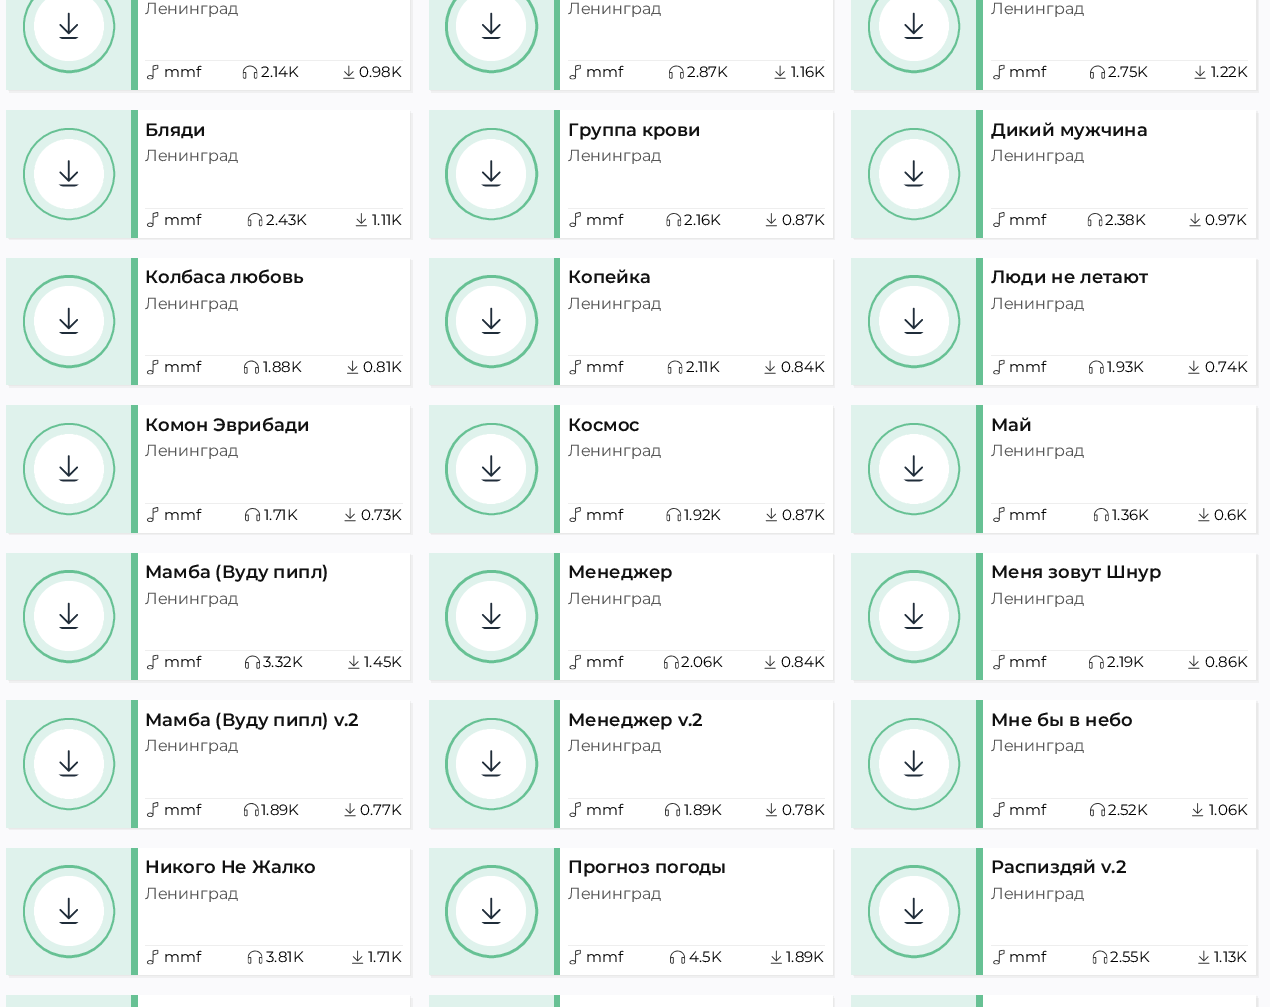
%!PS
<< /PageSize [1270 1007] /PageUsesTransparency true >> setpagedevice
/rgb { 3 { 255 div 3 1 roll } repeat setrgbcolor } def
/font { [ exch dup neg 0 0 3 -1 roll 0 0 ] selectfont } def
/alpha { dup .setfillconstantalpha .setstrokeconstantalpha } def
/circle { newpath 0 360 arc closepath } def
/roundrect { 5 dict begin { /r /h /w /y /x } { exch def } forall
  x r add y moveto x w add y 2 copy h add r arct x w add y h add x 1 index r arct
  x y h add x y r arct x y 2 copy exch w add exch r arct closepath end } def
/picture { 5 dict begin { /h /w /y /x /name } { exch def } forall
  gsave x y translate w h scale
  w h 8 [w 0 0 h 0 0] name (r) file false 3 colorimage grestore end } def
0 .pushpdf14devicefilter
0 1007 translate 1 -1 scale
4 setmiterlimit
250 250 252 rgb
0 0 1270 1007 rectfill
240 240 241 rgb
8 90 moveto 8 91 lineto 411 91 lineto 411 -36 lineto 410 -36 lineto 410 90 lineto closepath fill
0.3 alpha
216 216 216 rgb
9 90 moveto 9 93 lineto 413 93 lineto 413 -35 lineto 410 -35 lineto 410 90 lineto closepath fill
1 alpha
[
  [138 0 272 90 255 255 255]
  [6 0 125 90 223 242 236]
  [131 0 7 90 103 193 148]
] { aload pop rgb rectfill } forall
11 setlinewidth
28.5 -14.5 81 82 40.5 roundrect stroke
223 242 236 rgb
9 setlinewidth
29.5 -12.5 79 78 39 roundrect stroke
255 255 255 rgb
69 26 35 circle fill
(img/1.rgb) 59 12 20 27 picture
238 238 238 rgb
145 60 258 1 rectfill
(img/2.rgb) 146 64 13 16 picture
(img/3.rgb) 242 65 16 14 picture
(img/4.rgb) 343 65 12 14 picture
240 240 241 rgb
8 238 moveto 8 239 lineto 411 239 lineto 411 111 lineto 410 111 lineto 410 238 lineto closepath fill
0.3 alpha
216 216 216 rgb
9 238 moveto 9 240 lineto 413 240 lineto 413 113 lineto 410 113 lineto 410 238 lineto closepath fill
1 alpha
[
  [138 110 272 128 255 255 255]
  [6 110 125 128 223 242 236]
  [131 110 7 128 103 193 148]
] { aload pop rgb rectfill } forall
11 setlinewidth
69 174 40.5 circle stroke
223 242 236 rgb
9 setlinewidth
69 174 39.5 circle stroke
255 255 255 rgb
69 174 35 circle fill
(img/5.rgb) 58 160 21 27 picture
238 238 238 rgb
145 208 258 1 rectfill
(img/6.rgb) 146 212 13 15 picture
(img/7.rgb) 247 213 16 14 picture
(img/8.rgb) 355 213 12 14 picture
240 240 241 rgb
430 90 moveto 430 91 lineto 834 91 lineto 834 -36 lineto 832 -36 lineto 832 90 lineto closepath fill
0.3 alpha
216 216 216 rgb
431 90 moveto 431 93 lineto 835 93 lineto 835 -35 lineto 832 -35 lineto 832 90 lineto closepath fill
1 alpha
[
  [560 0 273 90 255 255 255]
  [429 0 125 90 223 242 236]
  [554 0 6 90 103 193 148]
] { aload pop rgb rectfill } forall
11 setlinewidth
491.5 26.5 41 circle stroke
223 242 236 rgb
9 setlinewidth
491.5 26.5 39 circle stroke
255 255 255 rgb
491 26 35 circle fill
(img/9.rgb) 481 12 20 27 picture
238 238 238 rgb
568 60 257 1 rectfill
(img/10.rgb) 569 64 12 16 picture
(img/11.rgb) 669 65 15 14 picture
(img/12.rgb) 774 65 12 14 picture
240 240 241 rgb
430 238 moveto 430 239 lineto 834 239 lineto 834 111 lineto 832 111 lineto 832 238 lineto closepath fill
0.3 alpha
216 216 216 rgb
431 238 moveto 431 240 lineto 835 240 lineto 835 113 lineto 832 113 lineto 832 238 lineto closepath fill
1 alpha
[
  [560 110 273 128 255 255 255]
  [429 110 125 128 223 242 236]
  [554 110 6 128 103 193 148]
] { aload pop rgb rectfill } forall
11 setlinewidth
450.5 133.5 82 81 40.5 roundrect stroke
223 242 236 rgb
9 setlinewidth
452.5 134.5 78 79 39 roundrect stroke
255 255 255 rgb
491 174 35 circle fill
(img/13.rgb) 481 160 21 27 picture
238 238 238 rgb
568 208 257 1 rectfill
(img/14.rgb) 569 212 12 15 picture
(img/15.rgb) 666 213 16 14 picture
(img/8.rgb) 765 213 12 14 picture
240 240 241 rgb
853 90 moveto 853 91 lineto 1258 91 lineto 1258 -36 lineto 1256 -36 lineto 1256 90 lineto closepath fill
0.3 alpha
216 216 216 rgb
854 90 moveto 854 93 lineto 1259 93 lineto 1259 -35 lineto 1256 -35 lineto 1256 90 lineto closepath fill
1 alpha
[
  [983 0 273 90 255 255 255]
  [851 0 125 90 223 242 236]
  [976 0 7 90 103 193 148]
] { aload pop rgb rectfill } forall
11 setlinewidth
873.5 -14.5 81 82 40.5 roundrect stroke
223 242 236 rgb
9 setlinewidth
874.5 -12.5 79 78 39 roundrect stroke
255 255 255 rgb
914 26 35 circle fill
(img/1.rgb) 904 12 20 27 picture
238 238 238 rgb
991 60 257 1 rectfill
(img/16.rgb) 993 64 12 16 picture
(img/17.rgb) 1090 65 15 14 picture
(img/12.rgb) 1194 65 12 14 picture
240 240 241 rgb
853 238 moveto 853 239 lineto 1258 239 lineto 1258 111 lineto 1256 111 lineto 1256 238 lineto closepath fill
0.3 alpha
216 216 216 rgb
854 238 moveto 854 240 lineto 1259 240 lineto 1259 113 lineto 1256 113 lineto 1256 238 lineto closepath fill
1 alpha
[
  [983 110 273 128 255 255 255]
  [851 110 125 128 223 242 236]
  [976 110 7 128 103 193 148]
] { aload pop rgb rectfill } forall
11 setlinewidth
914 174 40.5 circle stroke
223 242 236 rgb
9 setlinewidth
914 174 39.5 circle stroke
255 255 255 rgb
914 174 35 circle fill
(img/5.rgb) 903 160 21 27 picture
238 238 238 rgb
991 208 257 1 rectfill
(img/18.rgb) 993 212 12 15 picture
(img/19.rgb) 1087 213 16 14 picture
(img/20.rgb) 1189 213 12 14 picture
240 240 241 rgb
8 385 moveto 8 386 lineto 411 386 lineto 411 259 lineto 410 259 lineto 410 385 lineto closepath fill
0.3 alpha
216 216 216 rgb
9 385 moveto 9 388 lineto 413 388 lineto 413 260 lineto 410 260 lineto 410 385 lineto closepath fill
1 alpha
[
  [138 258 272 127 255 255 255]
  [6 258 125 127 223 242 236]
  [131 258 7 127 103 193 148]
] { aload pop rgb rectfill } forall
11 setlinewidth
28.5 280.5 81 82 40.5 roundrect stroke
223 242 236 rgb
9 setlinewidth
29.5 282.5 79 78 39 roundrect stroke
255 255 255 rgb
69 321 35 circle fill
(img/1.rgb) 59 307 20 27 picture
238 238 238 rgb
145 355 258 1 rectfill
(img/2.rgb) 146 359 13 16 picture
(img/21.rgb) 244 360 15 14 picture
(img/22.rgb) 347 360 12 14 picture
240 240 241 rgb
8 532 moveto 8 534 lineto 411 534 lineto 411 406 lineto 410 406 lineto 410 532 lineto closepath fill
0.3 alpha
216 216 216 rgb
9 532 moveto 9 535 lineto 413 535 lineto 413 408 lineto 410 408 lineto 410 532 lineto closepath fill
1 alpha
[
  [138 405 272 128 255 255 255]
  [6 405 125 128 223 242 236]
  [131 405 7 128 103 193 148]
] { aload pop rgb rectfill } forall
11 setlinewidth
69 469 40.5 circle stroke
223 242 236 rgb
9 setlinewidth
69 469 39.5 circle stroke
255 255 255 rgb
69 469 35 circle fill
(img/5.rgb) 58 455 21 27 picture
238 238 238 rgb
145 503 258 1 rectfill
(img/6.rgb) 146 507 13 15 picture
(img/23.rgb) 245 508 16 14 picture
(img/20.rgb) 344 508 12 14 picture
240 240 241 rgb
430 385 moveto 430 386 lineto 834 386 lineto 834 259 lineto 832 259 lineto 832 385 lineto closepath fill
0.3 alpha
216 216 216 rgb
431 385 moveto 431 388 lineto 835 388 lineto 835 260 lineto 832 260 lineto 832 385 lineto closepath fill
1 alpha
[
  [560 258 273 127 255 255 255]
  [429 258 125 127 223 242 236]
  [554 258 6 127 103 193 148]
] { aload pop rgb rectfill } forall
11 setlinewidth
491.5 321.5 41 circle stroke
223 242 236 rgb
9 setlinewidth
491.5 321.5 39 circle stroke
255 255 255 rgb
491 321 35 circle fill
(img/9.rgb) 481 307 20 27 picture
238 238 238 rgb
568 355 257 1 rectfill
(img/10.rgb) 569 359 12 16 picture
(img/24.rgb) 667 360 16 14 picture
(img/12.rgb) 764 360 12 14 picture
240 240 241 rgb
430 532 moveto 430 534 lineto 834 534 lineto 834 406 lineto 832 406 lineto 832 532 lineto closepath fill
0.3 alpha
216 216 216 rgb
431 532 moveto 431 535 lineto 835 535 lineto 835 408 lineto 832 408 lineto 832 532 lineto closepath fill
1 alpha
[
  [560 405 273 128 255 255 255]
  [429 405 125 128 223 242 236]
  [554 405 6 128 103 193 148]
] { aload pop rgb rectfill } forall
11 setlinewidth
450.5 428.5 82 81 40.5 roundrect stroke
223 242 236 rgb
9 setlinewidth
452.5 429.5 78 79 39 roundrect stroke
255 255 255 rgb
491 469 35 circle fill
(img/13.rgb) 481 455 21 27 picture
238 238 238 rgb
568 503 257 1 rectfill
(img/14.rgb) 569 507 12 15 picture
(img/15.rgb) 666 508 16 14 picture
(img/8.rgb) 765 508 12 14 picture
240 240 241 rgb
853 385 moveto 853 386 lineto 1258 386 lineto 1258 259 lineto 1256 259 lineto 1256 385 lineto closepath fill
0.3 alpha
216 216 216 rgb
854 385 moveto 854 388 lineto 1259 388 lineto 1259 260 lineto 1256 260 lineto 1256 385 lineto closepath fill
1 alpha
[
  [983 258 273 127 255 255 255]
  [851 258 125 127 223 242 236]
  [976 258 7 127 103 193 148]
] { aload pop rgb rectfill } forall
11 setlinewidth
873.5 280.5 81 82 40.5 roundrect stroke
223 242 236 rgb
9 setlinewidth
874.5 282.5 79 78 39 roundrect stroke
255 255 255 rgb
914 321 35 circle fill
(img/1.rgb) 904 307 20 27 picture
238 238 238 rgb
991 355 257 1 rectfill
(img/16.rgb) 993 359 12 16 picture
(img/25.rgb) 1089 360 15 14 picture
(img/4.rgb) 1188 360 12 14 picture
240 240 241 rgb
853 532 moveto 853 534 lineto 1258 534 lineto 1258 406 lineto 1256 406 lineto 1256 532 lineto closepath fill
0.3 alpha
216 216 216 rgb
854 532 moveto 854 535 lineto 1259 535 lineto 1259 408 lineto 1256 408 lineto 1256 532 lineto closepath fill
1 alpha
[
  [983 405 273 128 255 255 255]
  [851 405 125 128 223 242 236]
  [976 405 7 128 103 193 148]
] { aload pop rgb rectfill } forall
11 setlinewidth
914 469 40.5 circle stroke
223 242 236 rgb
9 setlinewidth
914 469 39.5 circle stroke
255 255 255 rgb
914 469 35 circle fill
(img/5.rgb) 903 455 21 27 picture
238 238 238 rgb
991 503 257 1 rectfill
(img/18.rgb) 993 507 12 15 picture
(img/26.rgb) 1094 508 15 14 picture
(img/27.rgb) 1198 508 12 14 picture
240 240 241 rgb
8 680 moveto 8 681 lineto 411 681 lineto 411 554 lineto 410 554 lineto 410 680 lineto closepath fill
0.3 alpha
216 216 216 rgb
9 680 moveto 9 683 lineto 413 683 lineto 413 555 lineto 410 555 lineto 410 680 lineto closepath fill
1 alpha
[
  [138 553 272 127 255 255 255]
  [6 553 125 127 223 242 236]
  [131 553 7 127 103 193 148]
] { aload pop rgb rectfill } forall
11 setlinewidth
28.5 575.5 81 82 40.5 roundrect stroke
223 242 236 rgb
9 setlinewidth
29.5 577.5 79 78 39 roundrect stroke
255 255 255 rgb
69 616 35 circle fill
(img/28.rgb) 59 602 20 27 picture
238 238 238 rgb
145 650 258 1 rectfill
(img/2.rgb) 146 654 13 16 picture
(img/29.rgb) 245 655 15 14 picture
(img/4.rgb) 348 655 12 14 picture
240 240 241 rgb
8 828 moveto 8 829 lineto 411 829 lineto 411 701 lineto 410 701 lineto 410 828 lineto closepath fill
0.3 alpha
216 216 216 rgb
9 828 moveto 9 830 lineto 413 830 lineto 413 703 lineto 410 703 lineto 410 828 lineto closepath fill
1 alpha
[
  [138 700 272 128 255 255 255]
  [6 700 125 128 223 242 236]
  [131 700 7 128 103 193 148]
] { aload pop rgb rectfill } forall
11 setlinewidth
69 764 40.5 circle stroke
223 242 236 rgb
9 setlinewidth
69 764 39.5 circle stroke
255 255 255 rgb
69 764 35 circle fill
(img/5.rgb) 58 750 21 27 picture
238 238 238 rgb
145 798 258 1 rectfill
(img/6.rgb) 146 802 13 15 picture
(img/30.rgb) 244 803 15 14 picture
(img/20.rgb) 344 803 12 14 picture
240 240 241 rgb
430 680 moveto 430 681 lineto 834 681 lineto 834 554 lineto 832 554 lineto 832 680 lineto closepath fill
0.3 alpha
216 216 216 rgb
431 680 moveto 431 683 lineto 835 683 lineto 835 555 lineto 832 555 lineto 832 680 lineto closepath fill
1 alpha
[
  [560 553 273 127 255 255 255]
  [429 553 125 127 223 242 236]
  [554 553 6 127 103 193 148]
] { aload pop rgb rectfill } forall
11 setlinewidth
491.5 616.5 41 circle stroke
223 242 236 rgb
9 setlinewidth
491.5 616.5 39 circle stroke
255 255 255 rgb
491 616 35 circle fill
(img/31.rgb) 481 602 20 27 picture
238 238 238 rgb
568 650 257 1 rectfill
(img/10.rgb) 569 654 12 16 picture
(img/11.rgb) 664 655 15 14 picture
(img/12.rgb) 764 655 12 14 picture
240 240 241 rgb
430 828 moveto 430 829 lineto 834 829 lineto 834 701 lineto 832 701 lineto 832 828 lineto closepath fill
0.3 alpha
216 216 216 rgb
431 828 moveto 431 830 lineto 835 830 lineto 835 703 lineto 832 703 lineto 832 828 lineto closepath fill
1 alpha
[
  [560 700 273 128 255 255 255]
  [429 700 125 128 223 242 236]
  [554 700 6 128 103 193 148]
] { aload pop rgb rectfill } forall
11 setlinewidth
450.5 723.5 82 81 40.5 roundrect stroke
223 242 236 rgb
9 setlinewidth
452.5 724.5 78 79 39 roundrect stroke
255 255 255 rgb
491 764 35 circle fill
(img/13.rgb) 481 750 21 27 picture
238 238 238 rgb
568 798 257 1 rectfill
(img/14.rgb) 569 802 12 15 picture
(img/32.rgb) 665 803 16 14 picture
(img/8.rgb) 765 803 12 14 picture
240 240 241 rgb
853 680 moveto 853 681 lineto 1258 681 lineto 1258 554 lineto 1256 554 lineto 1256 680 lineto closepath fill
0.3 alpha
216 216 216 rgb
854 680 moveto 854 683 lineto 1259 683 lineto 1259 555 lineto 1256 555 lineto 1256 680 lineto closepath fill
1 alpha
[
  [983 553 273 127 255 255 255]
  [851 553 125 127 223 242 236]
  [976 553 7 127 103 193 148]
] { aload pop rgb rectfill } forall
11 setlinewidth
873.5 575.5 81 82 40.5 roundrect stroke
223 242 236 rgb
9 setlinewidth
874.5 577.5 79 78 39 roundrect stroke
255 255 255 rgb
914 616 35 circle fill
(img/28.rgb) 904 602 20 27 picture
238 238 238 rgb
991 650 257 1 rectfill
(img/16.rgb) 993 654 12 16 picture
(img/25.rgb) 1089 655 15 14 picture
(img/4.rgb) 1188 655 12 14 picture
240 240 241 rgb
853 828 moveto 853 829 lineto 1258 829 lineto 1258 701 lineto 1256 701 lineto 1256 828 lineto closepath fill
0.3 alpha
216 216 216 rgb
854 828 moveto 854 830 lineto 1259 830 lineto 1259 703 lineto 1256 703 lineto 1256 828 lineto closepath fill
1 alpha
[
  [983 700 273 128 255 255 255]
  [851 700 125 128 223 242 236]
  [976 700 7 128 103 193 148]
] { aload pop rgb rectfill } forall
11 setlinewidth
914 764 40.5 circle stroke
223 242 236 rgb
9 setlinewidth
914 764 39.5 circle stroke
255 255 255 rgb
914 764 35 circle fill
(img/5.rgb) 903 750 21 27 picture
238 238 238 rgb
991 798 257 1 rectfill
(img/18.rgb) 993 802 12 15 picture
(img/33.rgb) 1090 803 15 14 picture
(img/34.rgb) 1192 803 12 14 picture
240 240 241 rgb
8 975 moveto 8 976 lineto 411 976 lineto 411 849 lineto 410 849 lineto 410 975 lineto closepath fill
0.3 alpha
216 216 216 rgb
9 975 moveto 9 978 lineto 413 978 lineto 413 850 lineto 410 850 lineto 410 975 lineto closepath fill
1 alpha
[
  [138 848 272 127 255 255 255]
  [6 848 125 127 223 242 236]
  [131 848 7 127 103 193 148]
] { aload pop rgb rectfill } forall
11 setlinewidth
28.5 870.5 81 82 40.5 roundrect stroke
223 242 236 rgb
9 setlinewidth
29.5 872.5 79 78 39 roundrect stroke
255 255 255 rgb
69 911 35 circle fill
(img/1.rgb) 59 897 20 27 picture
238 238 238 rgb
145 945 258 1 rectfill
(img/2.rgb) 146 949 13 16 picture
(img/35.rgb) 247 950 16 14 picture
(img/22.rgb) 352 950 12 14 picture
240 240 241 rgb
8 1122 moveto 8 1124 lineto 411 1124 lineto 411 996 lineto 410 996 lineto 410 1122 lineto closepath fill
0.3 alpha
216 216 216 rgb
9 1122 moveto 9 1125 lineto 413 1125 lineto 413 998 lineto 410 998 lineto 410 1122 lineto closepath fill
1 alpha
[
  [138 995 272 12 255 255 255]
  [6 995 125 12 223 242 236]
  [131 995 7 12 103 193 148]
] { aload pop rgb rectfill } forall
240 240 241 rgb
430 975 moveto 430 976 lineto 834 976 lineto 834 849 lineto 832 849 lineto 832 975 lineto closepath fill
0.3 alpha
216 216 216 rgb
431 975 moveto 431 978 lineto 835 978 lineto 835 850 lineto 832 850 lineto 832 975 lineto closepath fill
1 alpha
[
  [560 848 273 127 255 255 255]
  [429 848 125 127 223 242 236]
  [554 848 6 127 103 193 148]
] { aload pop rgb rectfill } forall
11 setlinewidth
491.5 911.5 41 circle stroke
223 242 236 rgb
9 setlinewidth
491.5 911.5 39 circle stroke
255 255 255 rgb
491 911 35 circle fill
(img/9.rgb) 481 897 20 27 picture
238 238 238 rgb
568 945 257 1 rectfill
(img/10.rgb) 569 949 12 16 picture
(img/36.rgb) 670 950 16 14 picture
(img/37.rgb) 770 950 12 14 picture
240 240 241 rgb
430 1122 moveto 430 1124 lineto 834 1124 lineto 834 996 lineto 832 996 lineto 832 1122 lineto closepath fill
0.3 alpha
216 216 216 rgb
431 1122 moveto 431 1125 lineto 835 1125 lineto 835 998 lineto 832 998 lineto 832 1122 lineto closepath fill
1 alpha
[
  [560 995 273 12 255 255 255]
  [429 995 125 12 223 242 236]
  [554 995 6 12 103 193 148]
] { aload pop rgb rectfill } forall
240 240 241 rgb
853 975 moveto 853 976 lineto 1258 976 lineto 1258 849 lineto 1256 849 lineto 1256 975 lineto closepath fill
0.3 alpha
216 216 216 rgb
854 975 moveto 854 978 lineto 1259 978 lineto 1259 850 lineto 1256 850 lineto 1256 975 lineto closepath fill
1 alpha
[
  [983 848 273 127 255 255 255]
  [851 848 125 127 223 242 236]
  [976 848 7 127 103 193 148]
] { aload pop rgb rectfill } forall
11 setlinewidth
873.5 870.5 81 82 40.5 roundrect stroke
223 242 236 rgb
9 setlinewidth
874.5 872.5 79 78 39 roundrect stroke
255 255 255 rgb
914 911 35 circle fill
(img/1.rgb) 904 897 20 27 picture
238 238 238 rgb
991 945 257 1 rectfill
(img/16.rgb) 993 949 12 16 picture
(img/38.rgb) 1092 950 16 14 picture
(img/4.rgb) 1198 950 12 14 picture
240 240 241 rgb
853 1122 moveto 853 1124 lineto 1258 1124 lineto 1258 996 lineto 1256 996 lineto 1256 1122 lineto closepath fill
0.3 alpha
216 216 216 rgb
854 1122 moveto 854 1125 lineto 1259 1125 lineto 1259 998 lineto 1256 998 lineto 1256 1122 lineto closepath fill
1 alpha
[
  [983 995 273 12 255 255 255]
  [851 995 125 12 223 242 236]
  [976 995 7 12 103 193 148]
] { aload pop rgb rectfill } forall
/Montserrat-Regular 16 font
85 85 85 rgb
145 14 moveto (Ленинград) show
/Montserrat-Regular 15 font
0 0 0 rgb
[
  [(mmf) 164 77]
  [(2.14K) 261 77]
  [(0.98K) 359 77]
] { aload pop moveto show } forall
/Montserrat-SemiBold 18 font
17 17 17 rgb
145 136 moveto (Бляди) show
/Montserrat-Regular 16 font
85 85 85 rgb
145 161 moveto (Ленинград) show
/Montserrat-Regular 15 font
0 0 0 rgb
[
  [(mmf) 164 225]
  [(2.43K) 266 225]
  [(1.11K) 372 225]
] { aload pop moveto show } forall
/Montserrat-Regular 16 font
85 85 85 rgb
568 14 moveto (Ленинград) show
/Montserrat-Regular 15 font
0 0 0 rgb
[
  [(mmf) 586 77]
  [(2.87K) 687 77]
  [(1.16K) 791 77]
] { aload pop moveto show } forall
/Montserrat-SemiBold 18 font
17 17 17 rgb
568 136 moveto (Группа крови) show
/Montserrat-Regular 16 font
85 85 85 rgb
568 161 moveto (Ленинград) show
/Montserrat-Regular 15 font
0 0 0 rgb
[
  [(mmf) 586 225]
  [(2.16K) 684 225]
  [(0.87K) 782 225]
] { aload pop moveto show } forall
/Montserrat-Regular 16 font
85 85 85 rgb
991 14 moveto (Ленинград) show
/Montserrat-Regular 15 font
0 0 0 rgb
[
  [(mmf) 1009 77]
  [(2.75K) 1108 77]
  [(1.22K) 1211 77]
] { aload pop moveto show } forall
/Montserrat-SemiBold 18 font
17 17 17 rgb
991 136 moveto (Дикий мужчина) show
/Montserrat-Regular 16 font
85 85 85 rgb
991 161 moveto (Ленинград) show
/Montserrat-Regular 15 font
0 0 0 rgb
[
  [(mmf) 1009 225]
  [(2.38K) 1105 225]
  [(0.97K) 1205 225]
] { aload pop moveto show } forall
/Montserrat-SemiBold 18 font
17 17 17 rgb
145 283 moveto (Колбаса любовь) show
/Montserrat-Regular 16 font
85 85 85 rgb
145 309 moveto (Ленинград) show
/Montserrat-Regular 15 font
0 0 0 rgb
[
  [(mmf) 164 372]
  [(1.88K) 263 372]
  [(0.81K) 363 372]
] { aload pop moveto show } forall
/Montserrat-SemiBold 18 font
17 17 17 rgb
145 431 moveto (Комон Эврибади) show
/Montserrat-Regular 16 font
85 85 85 rgb
145 456 moveto (Ленинград) show
/Montserrat-Regular 15 font
0 0 0 rgb
[
  [(mmf) 164 520]
  [(1.71K) 264 520]
  [(0.73K) 361 520]
] { aload pop moveto show } forall
/Montserrat-SemiBold 18 font
17 17 17 rgb
568 283 moveto (Копейка) show
/Montserrat-Regular 16 font
85 85 85 rgb
568 309 moveto (Ленинград) show
/Montserrat-Regular 15 font
0 0 0 rgb
[
  [(mmf) 586 372]
  [(2.11K) 686 372]
  [(0.84K) 781 372]
] { aload pop moveto show } forall
/Montserrat-SemiBold 18 font
17 17 17 rgb
568 431 moveto (Космос) show
/Montserrat-Regular 16 font
85 85 85 rgb
568 456 moveto (Ленинград) show
/Montserrat-Regular 15 font
0 0 0 rgb
[
  [(mmf) 586 520]
  [(1.92K) 684 520]
  [(0.87K) 782 520]
] { aload pop moveto show } forall
/Montserrat-SemiBold 18 font
17 17 17 rgb
991 283 moveto (Люди не летают) show
/Montserrat-Regular 16 font
85 85 85 rgb
991 309 moveto (Ленинград) show
/Montserrat-Regular 15 font
0 0 0 rgb
[
  [(mmf) 1009 372]
  [(1.93K) 1107 372]
  [(0.74K) 1205 372]
] { aload pop moveto show } forall
/Montserrat-SemiBold 18 font
17 17 17 rgb
991 431 moveto (Май) show
/Montserrat-Regular 16 font
85 85 85 rgb
991 456 moveto (Ленинград) show
/Montserrat-Regular 15 font
0 0 0 rgb
[
  [(mmf) 1009 520]
  [(1.36K) 1112 520]
  [(0.6K) 1214 520]
] { aload pop moveto show } forall
/Montserrat-SemiBold 18 font
17 17 17 rgb
145 578 moveto (Мамба \(Вуду пипл\)) show
/Montserrat-Regular 16 font
85 85 85 rgb
145 604 moveto (Ленинград) show
/Montserrat-Regular 15 font
0 0 0 rgb
[
  [(mmf) 164 667]
  [(3.32K) 263 667]
  [(1.45K) 364 667]
] { aload pop moveto show } forall
/Montserrat-SemiBold 18 font
17 17 17 rgb
145 726 moveto (Мамба \(Вуду пипл\) v.2) show
/Montserrat-Regular 16 font
85 85 85 rgb
145 751 moveto (Ленинград) show
/Montserrat-Regular 15 font
0 0 0 rgb
[
  [(mmf) 164 815]
  [(1.89K) 261 815]
  [(0.77K) 360 815]
] { aload pop moveto show } forall
/Montserrat-SemiBold 18 font
17 17 17 rgb
568 578 moveto (Менеджер) show
/Montserrat-Regular 16 font
85 85 85 rgb
568 604 moveto (Ленинград) show
/Montserrat-Regular 15 font
0 0 0 rgb
[
  [(mmf) 586 667]
  [(2.06K) 681 667]
  [(0.84K) 781 667]
] { aload pop moveto show } forall
/Montserrat-SemiBold 18 font
17 17 17 rgb
568 726 moveto (Менеджер v.2) show
/Montserrat-Regular 16 font
85 85 85 rgb
568 751 moveto (Ленинград) show
/Montserrat-Regular 15 font
0 0 0 rgb
[
  [(mmf) 586 815]
  [(1.89K) 684 815]
  [(0.78K) 782 815]
] { aload pop moveto show } forall
/Montserrat-SemiBold 18 font
17 17 17 rgb
991 578 moveto (Меня зовут Шнур) show
/Montserrat-Regular 16 font
85 85 85 rgb
991 604 moveto (Ленинград) show
/Montserrat-Regular 15 font
0 0 0 rgb
[
  [(mmf) 1009 667]
  [(2.19K) 1107 667]
  [(0.86K) 1205 667]
] { aload pop moveto show } forall
/Montserrat-SemiBold 18 font
17 17 17 rgb
991 726 moveto (Мне бы в небо) show
/Montserrat-Regular 16 font
85 85 85 rgb
991 751 moveto (Ленинград) show
/Montserrat-Regular 15 font
0 0 0 rgb
[
  [(mmf) 1009 815]
  [(2.52K) 1108 815]
  [(1.06K) 1209 815]
] { aload pop moveto show } forall
/Montserrat-SemiBold 18 font
17 17 17 rgb
145 873 moveto (Никого Не Жалко) show
/Montserrat-Regular 16 font
85 85 85 rgb
145 899 moveto (Ленинград) show
/Montserrat-Regular 15 font
0 0 0 rgb
[
  [(mmf) 164 962]
  [(3.81K) 266 962]
  [(1.71K) 368 962]
] { aload pop moveto show } forall
/Montserrat-SemiBold 18 font
17 17 17 rgb
568 873 moveto (Прогноз погоды) show
/Montserrat-Regular 16 font
85 85 85 rgb
568 899 moveto (Ленинград) show
/Montserrat-Regular 15 font
0 0 0 rgb
[
  [(mmf) 586 962]
  [(4.5K) 689 962]
  [(1.89K) 786 962]
] { aload pop moveto show } forall
/Montserrat-SemiBold 18 font
17 17 17 rgb
991 873 moveto (Распиздяй v.2) show
/Montserrat-Regular 16 font
85 85 85 rgb
991 899 moveto (Ленинград) show
/Montserrat-Regular 15 font
0 0 0 rgb
[
  [(mmf) 1009 962]
  [(2.55K) 1110 962]
  [(1.13K) 1214 962]
] { aload pop moveto show } forall
.poppdf14devicefilter showpage
